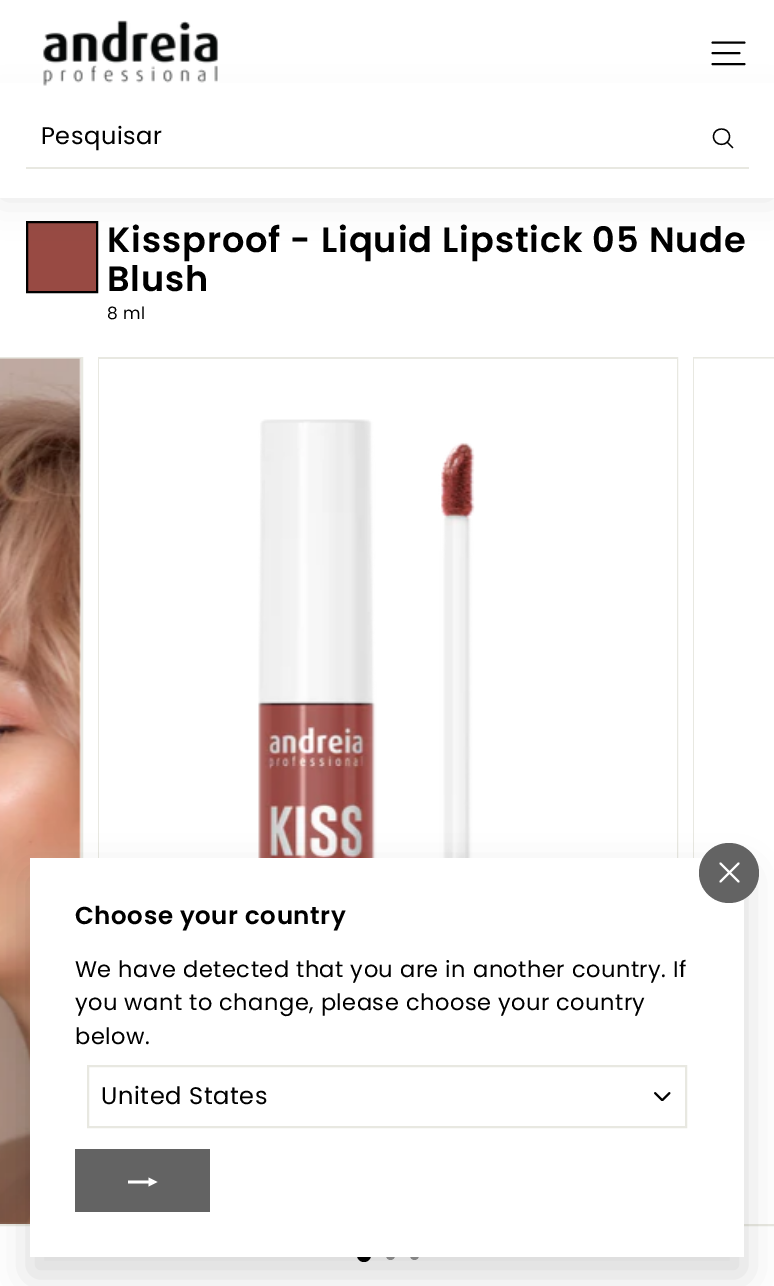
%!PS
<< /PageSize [774 1286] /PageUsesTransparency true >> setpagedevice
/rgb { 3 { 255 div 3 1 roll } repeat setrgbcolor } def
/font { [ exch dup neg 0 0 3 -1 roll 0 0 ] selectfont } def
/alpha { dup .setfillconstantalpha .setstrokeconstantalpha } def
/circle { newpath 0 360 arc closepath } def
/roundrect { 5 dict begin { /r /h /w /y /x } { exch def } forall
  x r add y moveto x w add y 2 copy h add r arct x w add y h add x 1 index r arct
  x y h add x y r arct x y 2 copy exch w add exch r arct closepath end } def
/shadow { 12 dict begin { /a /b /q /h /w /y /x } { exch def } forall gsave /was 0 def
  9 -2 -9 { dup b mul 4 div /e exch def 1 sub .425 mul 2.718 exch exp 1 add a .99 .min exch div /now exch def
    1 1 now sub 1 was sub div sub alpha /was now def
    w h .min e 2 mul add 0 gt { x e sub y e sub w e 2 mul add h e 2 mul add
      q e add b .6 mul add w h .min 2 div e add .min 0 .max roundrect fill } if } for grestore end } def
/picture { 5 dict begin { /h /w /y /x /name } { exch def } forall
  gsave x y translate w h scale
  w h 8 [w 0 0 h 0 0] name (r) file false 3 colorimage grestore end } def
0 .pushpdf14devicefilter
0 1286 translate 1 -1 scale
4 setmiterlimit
255 255 255 rgb
0 0 774 1286 rectfill
152 74 67 rgb
27 222 moveto 97 222 lineto 97 292 lineto 27 292 lineto closepath gsave fill grestore
0 0 0 rgb
2 setlinewidth
stroke
0 107 774 91 0 19 0.1 shadow
255 255 255 rgb
0 83 774 115 rectfill
(img/1.rgb) 43 20 176 66 picture
0 0 0 rgb
1.9 setlinewidth
1 setlinecap
1 setlinejoin
712.5 42.5 moveto 744.5 42.5 lineto 712.5 53 moveto 739.5 53 lineto 712.5 64 moveto 744.5 64 lineto stroke
232 232 225 rgb
26 167 723 2 rectfill
0 0 0 rgb
1.3 setlinewidth
729.5 136.5 moveto 729.5 147 713.5 147 713.5 136.5 curveto 713.5 126.5 729.5 126.5 729.5 136.5 curveto closepath 732.5 147.5 moveto 727 142 lineto stroke
232 232 225 rgb
2 setlinewidth
0 setlinecap
0 setlinejoin
-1 358 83 867 rectstroke
(img/2.rgb) 0 358 81 866 picture
99 358 578 867 rectstroke
255 255 255 rgb
99 359 578 499 rectfill
(img/3.rgb) 258 419 217 439 picture
232 232 225 rgb
694 358 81 867 rectstroke
(img/4.rgb) 694 358 80 866 picture
0 0 0 rgb
364 1255 7 circle fill
153 153 153 rgb
390.5 1255.5 4.5 circle fill
414.5 1255.5 4.5 circle fill
0 0 0 rgb
30 876 714 399 0 19 0.15 shadow
255 255 255 rgb
30 858 714 399 rectfill
99 99 99 rgb
729 873 30 circle fill
255 255 255 rgb
1 setlinecap
1 setlinejoin
720.5 863.5 moveto 738.5 881.5 lineto 738.5 863.5 moveto 720.5 881.5 lineto stroke
(img/5.rgb) 654 1092 17 9 picture
232 232 225 rgb
0 setlinecap
0 setlinejoin
88 1066 598 61 rectstroke
99 99 99 rgb
75 1149 135 63 rectfill
gsave
128 1167 30 30 rectclip
255 255 255 rgb
127.5 1183.5 moveto 127.5 1180.5 lineto 148.5 1180.5 lineto 148.5 1177.5 lineto 157.5 1182 lineto 148.5 1186.5 lineto 148.5 1183.5 lineto closepath fill
grestore
/Poppins-Regular 24 font
0 0 0 rgb
41 144 moveto 0.6 0 (Pesquisar) ashow
/Poppins-SemiBold 35.1 font
107 252 moveto 0.9 0 (Kissproof - Liquid Lipstick 05 Nude) ashow
107 291 moveto 0.9 0 (Blush) ashow
/Poppins-Regular 17 font
107 319 moveto 0.5 0 (8 ml) ashow
/Poppins-SemiBold 24.5 font
75 924 moveto 0.6 0 (Choose your country) ashow
/Poppins-Regular 22.5 font
75 977 moveto 0.5 0 (We have detected that you are in another country. If) ashow
75 1010 moveto 0.5 0 (you want to change, please choose your country) ashow
75 1044 moveto 0.5 0 (below.) ashow
/Poppins-Regular 24 font
101 1104 moveto 0.6 0 (United States) ashow
.poppdf14devicefilter showpage
